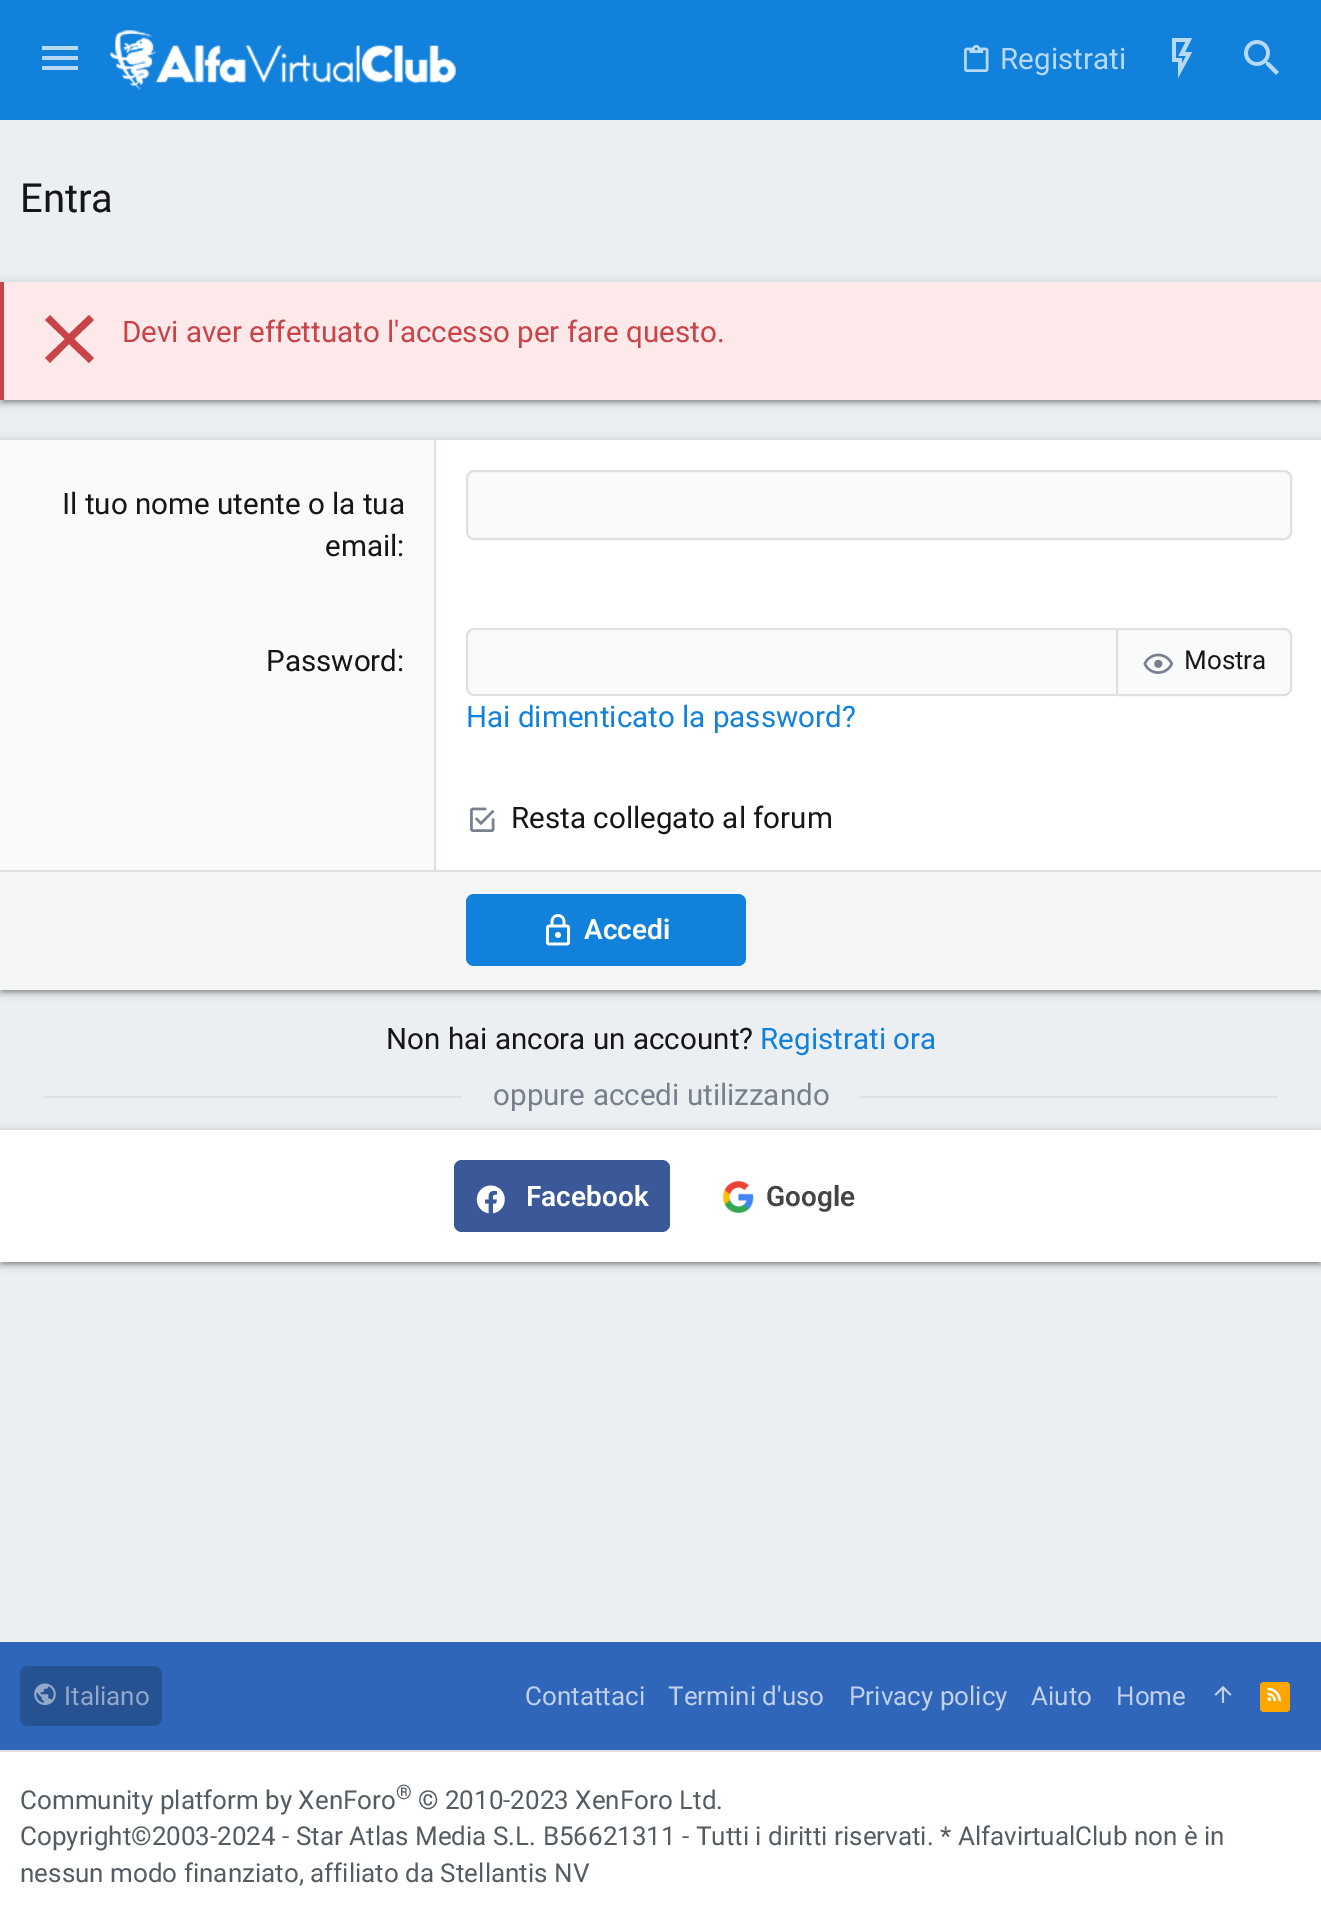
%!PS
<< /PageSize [1321 1921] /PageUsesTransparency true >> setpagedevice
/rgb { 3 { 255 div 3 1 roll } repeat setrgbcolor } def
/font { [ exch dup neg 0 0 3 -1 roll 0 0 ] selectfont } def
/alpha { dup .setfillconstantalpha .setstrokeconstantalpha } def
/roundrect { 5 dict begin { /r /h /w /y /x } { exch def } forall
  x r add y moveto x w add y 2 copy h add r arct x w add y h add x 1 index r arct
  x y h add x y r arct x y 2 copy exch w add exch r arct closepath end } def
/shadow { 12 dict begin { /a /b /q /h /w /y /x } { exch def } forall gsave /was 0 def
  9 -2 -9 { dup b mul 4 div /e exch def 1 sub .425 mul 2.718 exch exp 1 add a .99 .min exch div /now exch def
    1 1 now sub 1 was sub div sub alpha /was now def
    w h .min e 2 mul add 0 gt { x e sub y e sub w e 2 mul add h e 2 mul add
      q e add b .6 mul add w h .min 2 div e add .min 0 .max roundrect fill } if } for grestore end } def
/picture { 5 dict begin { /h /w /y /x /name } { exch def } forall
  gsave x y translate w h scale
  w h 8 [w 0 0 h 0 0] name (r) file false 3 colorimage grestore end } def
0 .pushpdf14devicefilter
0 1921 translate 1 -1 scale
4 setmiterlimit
236 239 241 rgb
0 0 1321 1921 rectfill
17 129 220 rgb
0 0 1321 120 rectfill
184 217 245 rgb
42 46 moveto 78 46 lineto 78 50 lineto 42 50 lineto closepath 42 56 moveto 78 56 lineto 78 60 lineto 42 60 lineto closepath 42 66 moveto 78 66 lineto 78 70 lineto 42 70 lineto closepath fill
(img/1.rgb) 110 30 346 60 picture
(img/2.rgb) 964 44 25 28 picture
1172 38 moveto 1192 38 lineto 1185 52 lineto 1192 52 lineto 1178 78 lineto 1178 62 lineto 1172 62 lineto closepath 1176 42 moveto 1176 58 lineto 1182 58 lineto 1182 63.5 lineto 1186 56 lineto 1178.5 56 lineto 1185.5 42 lineto closepath fill
(img/3.rgb) 1244 40 35 35 picture
0 0 0 rgb
0 284 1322 118 0 5 0.2 shadow
4 292 1314 110 0 1 0.12 shadow
0 286 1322 118 0 2 0.14 shadow
253 233 233 rgb
4 282 1317 118 rectfill
200 68 72 rgb
0 282 4 118 rectfill
94 320 moveto 89 315 lineto 69 334 lineto 50 315 lineto 45 320 lineto 65 339 lineto 45 358 lineto 50 363 lineto 69 344 lineto 89 363 lineto 94 358 lineto 74 339 lineto closepath fill
0 0 0 rgb
0 442 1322 550 0 5 0.2 shadow
4 450 1314 542 0 1 0.12 shadow
0 444 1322 550 0 2 0.14 shadow
[
  [436 440 885 430 255 255 255]
  [0 440 434 430 249 250 250]
  [434 440 2 430 224 224 224]
] { aload pop rgb rectfill } forall
249 250 250 rgb
467 471 824 68 7 roundrect gsave fill grestore
224 224 224 rgb
2 setlinewidth
stroke
249 250 250 rgb
474 628 moveto 1116 628 lineto 1116 696 lineto 474 696 lineto 469.5 696 466 692.5 466 688 curveto 466 636 lineto 466 631.5 469.5 628 474 628 curveto closepath fill
224 224 224 rgb
474 628 moveto 1116 628 lineto 1116 696 lineto 474 696 lineto 470 696 466 692 466 688 curveto 466 636 lineto 466 632 470 628 474 628 curveto closepath 474 630 moveto 1116 630 lineto 1116 694 lineto 474 694 lineto 471 694 468 691 468 688 curveto 468 636 lineto 468 633 471 630 474 630 curveto closepath eofill
249 250 250 rgb
1117 629 moveto 1284 629 lineto 1288 629 1291 632 1291 636 curveto 1291 688 lineto 1291 692 1288 695 1284 695 curveto 1117 695 lineto closepath gsave fill grestore
224 224 224 rgb
stroke
(img/4.rgb) 1143 653 31 21 picture
(img/5.rgb) 470 807 25 25 picture
244 245 246 rgb
0 872 1321 118 rectfill
224 224 224 rgb
0 870 1321 2 rectfill
17 129 220 rgb
466 894 280 72 8 roundrect fill
(img/6.rgb) 545 914 26 32 picture
224 224 224 rgb
44 1096 418 2 rectfill
860 1096 418 2 rectfill
0 0 0 rgb
0 1132 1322 132 0 5 0.2 shadow
4 1140 1314 124 0 1 0.12 shadow
0 1134 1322 132 0 2 0.14 shadow
255 255 255 rgb
0 1130 1321 132 rectfill
59 89 152 rgb
454 1160 216 72 8 roundrect fill
(img/7.rgb) 476 1185 29 29 picture
(img/8.rgb) 722 1181 32 33 picture
47 102 185 rgb
0 1642 1321 108 rectfill
38 82 148 rgb
20 1666 142 60 8 roundrect fill
(img/9.rgb) 34 1683 22 22 picture
(img/10.rgb) 1214 1686 18 17 picture
255 165 0 rgb
1260 1682 30 30 4 roundrect fill
(img/11.rgb) 1267 1687 14 15 picture
255 255 255 rgb
0 1752 1321 169 rectfill
224 224 224 rgb
0 1750 1321 2 rectfill
/Roboto-Regular 29.6 font
184 217 245 rgb
1000 69 moveto (Registrati) show
/Roboto-Regular 40 font
20 22 24 rgb
20 212 moveto (Entra) show
/Roboto-Regular 29.6 font
200 68 72 rgb
122 342 moveto (Devi aver effettuato l'accesso per fare questo.) show
20 22 24 rgb
[
  [(Il tuo nome utente o la tua) 62 514]
  [(email:) 325 556]
  [(Password:) 266 671]
] { aload pop moveto show } forall
/Roboto-Regular 26 font
1184 669 moveto (Mostra) show
/Roboto-Regular 29.6 font
17 129 220 rgb
466 727 moveto (Hai dimenticato la password?) show
20 22 24 rgb
511 828 moveto (Resta collegato al forum) show
/Roboto-SemiBold 28 font
255 255 255 rgb
584 939 moveto (Accedi) show
/Roboto-Regular 29.6 font
20 22 24 rgb
386 1049 moveto (Non hai ancora un account?) show
17 129 220 rgb
760 1049 moveto (Registrati ora) show
118 129 141 rgb
493 1105 moveto (oppure accedi utilizzando) show
/Roboto-SemiBold 28 font
255 255 255 rgb
526 1206 moveto (Facebook) show
68 68 68 rgb
766 1206 moveto (Google) show
/Roboto-Regular 26 font
147 169 202 rgb
64 1705 moveto (Italiano) show
193 209 234 rgb
[
  [(Contattaci) 525 1705]
  [(Termini d'uso) 668 1705]
  [(Privacy policy) 849 1705]
  [(Aiuto) 1031 1705]
  [(Home) 1116 1705]
] { aload pop moveto show } forall
83 91 99 rgb
20 1809 moveto (Community platform by XenForo) show
/Roboto-Regular 20 font
396 1799 moveto (®) show
/Roboto-Regular 26 font
[
  [(© 2010-2023 XenForo Ltd.) 418 1809]
  [(Copyright©2003-2024 - Star Atlas Media S.L. B56621311 - Tutti i diritti riservati. * AlfavirtualClub non è in) 20 1845]
  [(nessun modo finanziato, affiliato da Stellantis NV) 20 1882]
] { aload pop moveto show } forall
.poppdf14devicefilter showpage
